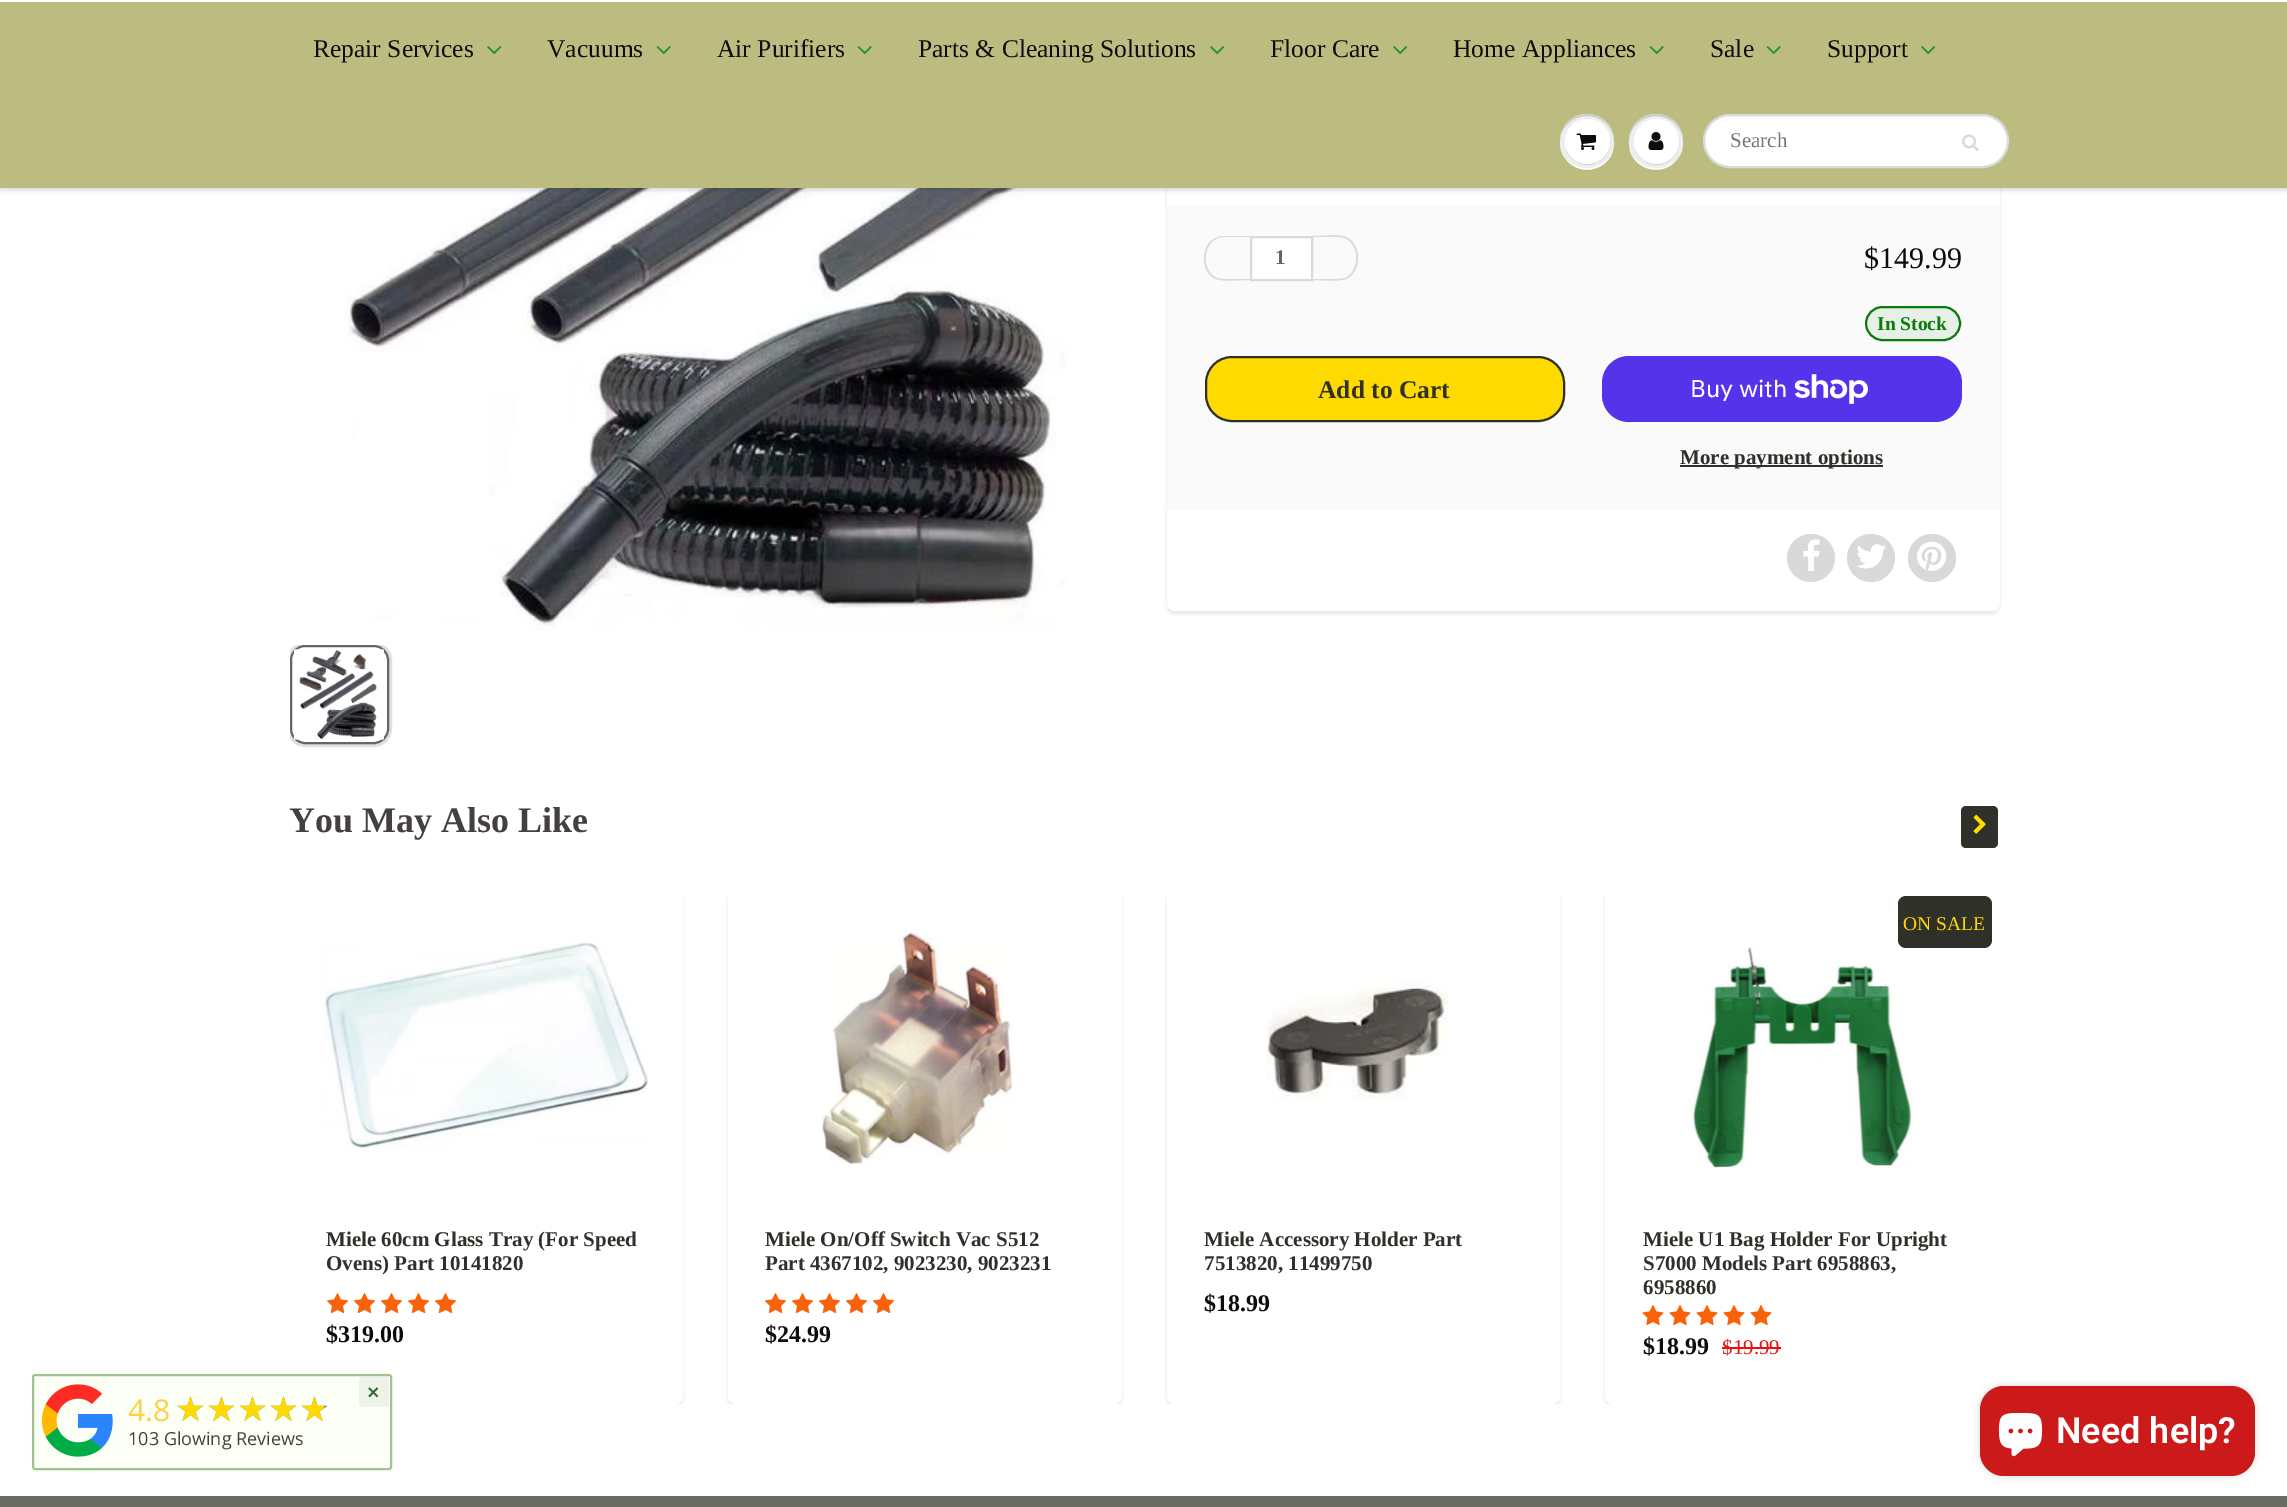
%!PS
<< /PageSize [2287 1507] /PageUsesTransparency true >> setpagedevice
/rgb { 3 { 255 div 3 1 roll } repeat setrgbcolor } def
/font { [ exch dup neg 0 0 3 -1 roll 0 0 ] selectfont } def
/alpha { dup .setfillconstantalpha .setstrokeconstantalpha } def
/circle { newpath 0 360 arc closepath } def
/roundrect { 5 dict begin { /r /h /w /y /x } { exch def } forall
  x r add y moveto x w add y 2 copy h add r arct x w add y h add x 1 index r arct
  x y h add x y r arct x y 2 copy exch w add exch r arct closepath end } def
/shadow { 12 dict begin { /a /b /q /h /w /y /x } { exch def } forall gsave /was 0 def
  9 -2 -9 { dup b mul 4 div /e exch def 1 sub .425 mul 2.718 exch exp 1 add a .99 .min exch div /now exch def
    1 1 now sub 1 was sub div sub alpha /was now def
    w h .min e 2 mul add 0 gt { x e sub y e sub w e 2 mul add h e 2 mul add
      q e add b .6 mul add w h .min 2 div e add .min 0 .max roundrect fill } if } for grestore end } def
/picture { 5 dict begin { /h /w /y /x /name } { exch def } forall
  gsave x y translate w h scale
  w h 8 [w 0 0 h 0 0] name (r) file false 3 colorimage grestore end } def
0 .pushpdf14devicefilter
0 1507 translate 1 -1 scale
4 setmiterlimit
255 255 255 rgb
0 0 2287 1507 rectfill
(img/6.rgb) 312 188 754 442 picture
11 25 28 rgb
1167 -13 833 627 8 1.5 0.1 shadow
255 255 255 rgb
1167 -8 833 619 8 roundrect fill
11 25 28 rgb
0 3 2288 188 0 1.5 0.12 shadow
188 188 128 rgb
0 2 2287 186 rectfill
255 255 255 rgb
0 0 2287 2 rectfill
(img/1.rgb) 487 46 15 9 picture
(img/2.rgb) 656 46 15 9 picture
(img/2.rgb) 857 46 15 9 picture
(img/1.rgb) 1210 46 15 9 picture
(img/1.rgb) 1393 46 15 9 picture
(img/2.rgb) 1649 46 15 9 picture
(img/2.rgb) 1766 46 15 9 picture
(img/1.rgb) 1921 46 15 9 picture
1614 142 moveto 1613 176 1561 176 1560 142 curveto 1560 148 1561 153 1565 158 curveto 1580 180 1615 169 1614 142 curveto closepath fill
237 239 239 rgb
1587 141 27 circle fill
201 203 203 rgb
1587 116 moveto 1602 116 1614 128 1614 142 curveto 1614 136 1612 130 1609 126 curveto 1594 104 1560 115 1560 142 curveto 1560 128 1572 116 1587 116 curveto closepath fill
1566 149 moveto 1567 153 1570 158 1574 160 curveto 1592 174 1616 155 1609 135 curveto 1617 162 1576 176 1566 149 curveto closepath fill
255 255 255 rgb
1587.5 141.5 22.5 circle fill
1587 120 moveto 1605 120 1612 137 1608 150 curveto 1617 128 1589 109 1572 125 curveto 1576 122 1581 120 1587 120 curveto closepath fill
(img/3.rgb) 1576 133 20 17 picture
1683 142 moveto 1682 176 1630 176 1629 142 curveto 1628 169 1663 180 1678 158 curveto 1682 153 1683 148 1683 142 curveto closepath fill
237 239 239 rgb
1656 141 27 circle fill
201 203 203 rgb
1656 116 moveto 1671 116 1683 128 1683 142 curveto 1683 136 1681 130 1678 126 curveto 1663 104 1629 115 1629 142 curveto 1629 128 1641 116 1656 116 curveto closepath fill
1635 149 moveto 1636 153 1639 158 1643 160 curveto 1661 174 1685 155 1678 135 curveto 1686 162 1645 176 1635 149 curveto closepath fill
255 255 255 rgb
1656.5 141.5 22.5 circle fill
1656 120 moveto 1674 120 1681 137 1677 150 curveto 1686 128 1658 109 1641 125 curveto 1645 122 1650 120 1656 120 curveto closepath fill
(img/4.rgb) 1648 132 16 18 picture
1704 115 304 52 26 roundrect gsave fill grestore
215 219 219 rgb
2 setlinewidth
stroke
(img/5.rgb) 1962 134 17 17 picture
gsave
290 645 832 108 rectclip
224 224 224 rgb
3 setlinewidth
288.5 643.5 102 102 16.5 roundrect stroke
grestore
255 255 255 rgb
290 645 99 99 15 roundrect fill
0.6 alpha
0 0 0 rgb
291 646 97 97 14 roundrect stroke
1 alpha
(img/7.rgb) 294 649 90 91 picture
250 250 250 rgb
1167 206 833 304 rectfill
215 219 219 rgb
1224 236 moveto 1250 236 lineto 1250 280 lineto 1241 280 1223 282 1216 279 curveto 1197 271 1201 236 1224 236 curveto closepath 1224 237 moveto 1250 237 lineto 1250 279 lineto 1242 279 1224 280 1217 278 curveto 1199 270 1203 237 1224 237 curveto closepath eofill
255 255 255 rgb
1251 237 moveto 1312 237 lineto 1312 280 lineto 1251 280 lineto closepath gsave fill grestore
215 219 219 rgb
stroke
1312 236 moveto 1321 236 1339 234 1346 237 curveto 1362 244 1362 272 1346 279 curveto 1339 282 1321 280 1312 280 curveto closepath 1312 237 moveto 1320 237 1338 236 1345 238 curveto 1360 245 1360 271 1345 278 curveto 1338 280 1320 279 1312 279 curveto closepath eofill
231 240 231 rgb
1866 307 94 33 16.5 roundrect gsave fill grestore
11 122 11 rgb
stroke
255 218 0 rgb
1206 357 358 64 26 roundrect gsave fill grestore
48 48 43 rgb
stroke
84 51 235 rgb
1602 356 360 66 27 roundrect fill
(img/8.rgb) 1794 374 74 30 picture
48 48 43 rgb
1680 465 203 2 rectfill
217 217 217 rgb
1811 558 24 circle fill
(img/9.rgb) 1803 539 17 32 picture
1871 558 24 circle fill
(img/10.rgb) 1857 544 29 25 picture
1932 558 24 circle fill
(img/11.rgb) 1917 541 30 30 picture
48 48 43 rgb
1961 806 37 42 5 roundrect fill
(img/12.rgb) 1973 814 13 20 picture
gsave
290 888 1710 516 rectclip
11 25 28 rgb
290 891 393 516 8 1.5 0.1 shadow
grestore
255 255 255 rgb
294 892 385 508 4 roundrect gsave fill grestore
8 setlinewidth
stroke
(img/13.rgb) 324 942 324 207 picture
(img/14.rgb) 327 1293 21 21 picture
(img/14.rgb) 354 1293 21 21 picture
(img/14.rgb) 381 1293 21 21 picture
(img/14.rgb) 408 1293 21 21 picture
(img/14.rgb) 435 1293 21 21 picture
gsave
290 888 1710 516 rectclip
11 25 28 rgb
728 891 394 516 8 1.5 0.1 shadow
grestore
732 892 386 508 4 roundrect gsave fill grestore
stroke
(img/15.rgb) 822 929 191 235 picture
(img/14.rgb) 765 1293 21 21 picture
(img/14.rgb) 792 1293 21 21 picture
(img/14.rgb) 819 1293 21 21 picture
(img/14.rgb) 846 1293 21 21 picture
(img/14.rgb) 873 1293 21 21 picture
gsave
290 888 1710 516 rectclip
11 25 28 rgb
1167 891 393 516 8 1.5 0.1 shadow
grestore
1171 892 385 508 4 roundrect gsave fill grestore
stroke
(img/16.rgb) 1266 981 183 122 picture
gsave
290 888 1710 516 rectclip
11 25 28 rgb
1605 891 395 516 8 1.5 0.1 shadow
grestore
1609 892 387 508 4 roundrect gsave fill grestore
stroke
(img/17.rgb) 1693 947 221 222 picture
48 48 43 rgb
1898 896 94 52 8 roundrect fill
(img/18.rgb) 1642 1305 22 21 picture
(img/18.rgb) 1669 1305 22 21 picture
(img/18.rgb) 1696 1305 22 21 picture
(img/18.rgb) 1723 1305 22 21 picture
(img/18.rgb) 1750 1305 22 21 picture
235 16 16 rgb
1722 1347 59 2 rectfill
107 107 97 rgb
0 1496 2287 11 rectfill
252 255 245 rgb
30 1373 363 99 5 roundrect fill
163 194 147 rgb
2 setlinewidth
33 1375 358 94 2 roundrect stroke
239 242 233 rgb
359 1377 30 30 3 roundrect fill
(img/19.rgb) 41 1384 72 73 picture
0 0 0 rgb
1980 1386 275 90 24 4 0.15 shadow
204 25 25 rgb
1980 1386 275 90 24 roundrect fill
(img/20.rgb) 1998 1413 45 44 picture
/LiberationSerif-Regular 25.5 font
13 12 12 rgb
[
  [(Repair Services) 313 57]
  [(Vacuums) 547 57]
  [(Air Purifiers) 717 57]
  [(Parts & Cleaning Solutions) 918 57]
  [(Floor Care) 1270 57]
  [(Home Appliances) 1453 57]
  [(Sale) 1710 57]
  [(Support) 1827 57]
] { aload pop moveto show } forall
/LiberationSerif-Regular 21 font
117 117 117 rgb
1730 147 moveto (Search) show
/LiberationSerif-Bold 21 font
101 101 97 rgb
1275 264 moveto (1) show
/LiberationSerif-Regular 30 font
13 12 12 rgb
1864 268 moveto ($149.99) show
/LiberationSerif-Bold 19.5 font
11 122 11 rgb
1877 330 moveto (In Stock) show
/LiberationSerif-Bold 25.5 font
48 48 43 rgb
1318 398 moveto (Add to Cart) show
/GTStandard-Regular 24 font
255 255 255 rgb
1690 397 moveto (Buy with) show
/LiberationSerif-Bold 21 font
48 48 43 rgb
1680 464 moveto (More payment options) show
/LiberationSerif-Bold 36 font
69 64 64 rgb
289 832 moveto (You May Also Like) show
/LiberationSerif-Bold 21 font
48 48 43 rgb
326 1246 moveto (Miele 60cm Glass Tray \(For Speed) show
326 1270 moveto (Ovens\) Part 10141820) show
/LiberationSerif-Bold 24 font
13 12 12 rgb
326 1342 moveto ($319.00) show
/LiberationSerif-Bold 21 font
48 48 43 rgb
765 1246 moveto (Miele On/Off Switch Vac S512) show
765 1270 moveto (Part 4367102, 9023230, 9023231) show
/LiberationSerif-Bold 24 font
13 12 12 rgb
765 1342 moveto ($24.99) show
/LiberationSerif-Bold 21 font
48 48 43 rgb
1204 1246 moveto (Miele Accessory Holder Part) show
1204 1270 moveto (7513820, 11499750) show
/LiberationSerif-Bold 24 font
13 12 12 rgb
1204 1311 moveto ($18.99) show
/LiberationSerif-Regular 19.5 font
255 218 0 rgb
1903 930 moveto (ON SALE) show
/LiberationSerif-Bold 21 font
48 48 43 rgb
[
  [(Miele U1 Bag Holder For Upright) 1643 1246]
  [(S7000 Models Part 6958863,) 1643 1270]
  [(6958860) 1643 1294]
] { aload pop moveto show } forall
/LiberationSerif-Bold 24 font
13 12 12 rgb
1643 1354 moveto ($18.99) show
/LiberationSerif-Regular 21 font
235 16 16 rgb
1722 1354 moveto ($19.99) show
/OpenSans-Bold 21 font
44 102 45 rgb
367 1400 moveto (×) show
/OpenSans-Regular 30 font
254 209 68 rgb
128 1421 moveto (4.8) show
/DejaVuSans-Regular 34.5 font
128 128 128 rgb
175 1421 moveto (★★★★★) show
gsave
176 1392 148 30 rectclip
255 218 0 rgb
175 1421 moveto (★★★★★) show
grestore
/OpenSans-Regular 18 font
69 64 64 rgb
128 1445 moveto (103 Glowing Reviews) show
/Roboto-SemiBold 36 font
255 255 255 rgb
2056 1443 moveto (Need help?) show
.poppdf14devicefilter showpage
